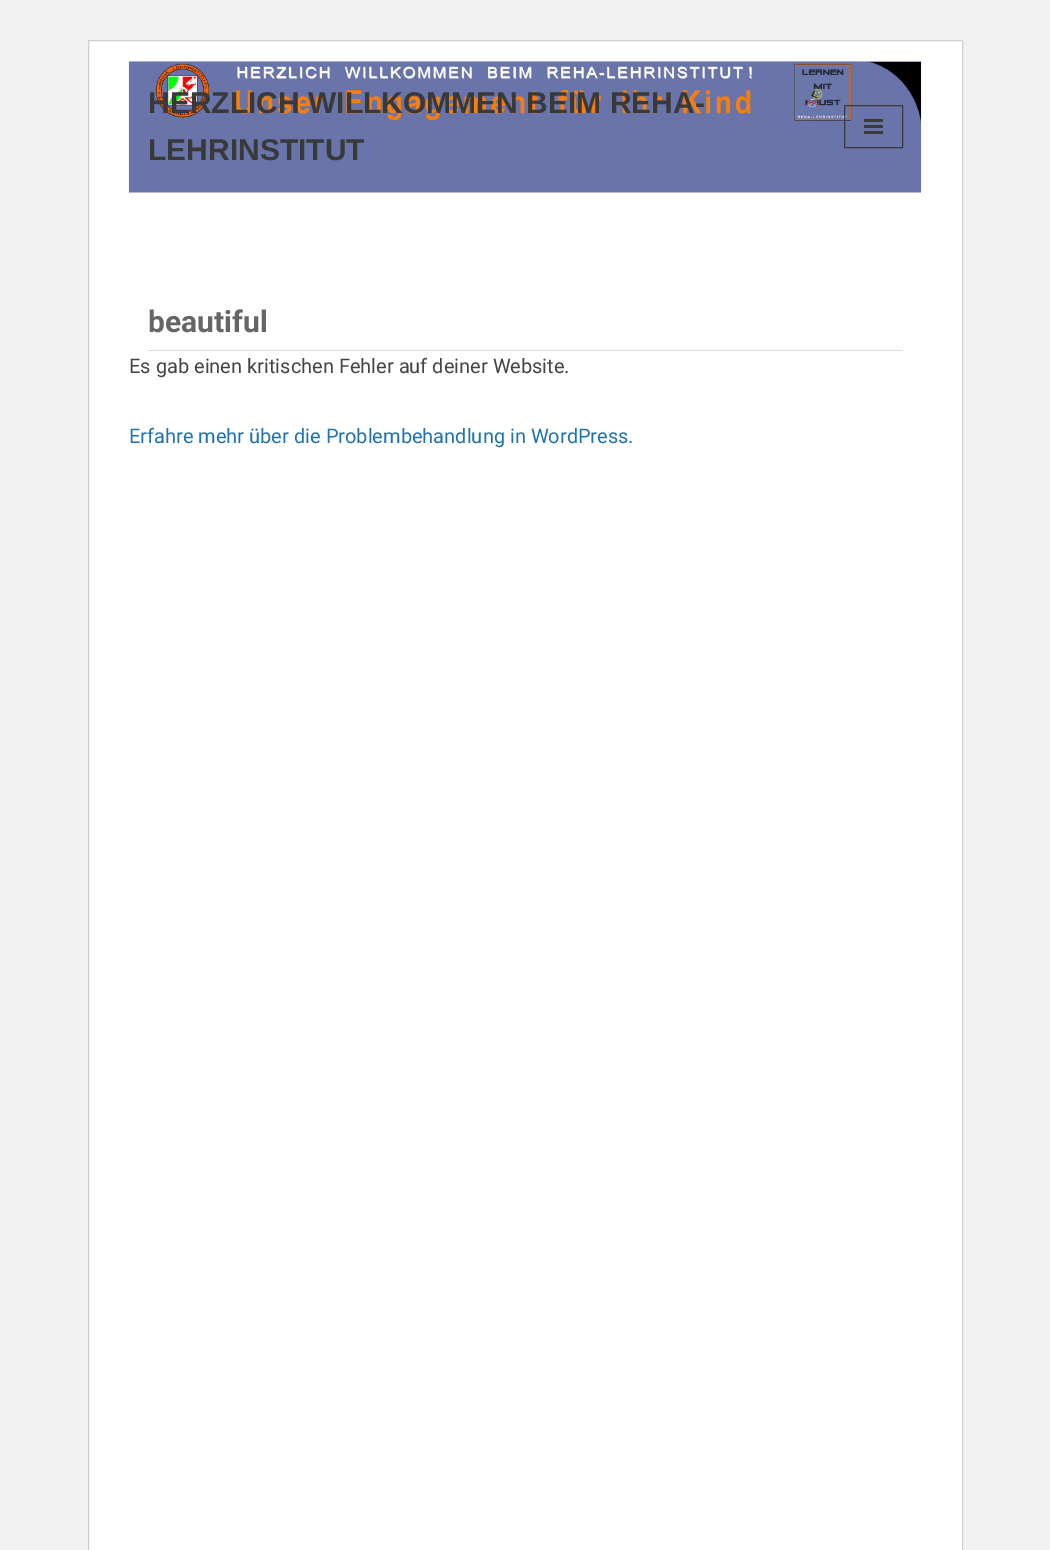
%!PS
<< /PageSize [1050 1550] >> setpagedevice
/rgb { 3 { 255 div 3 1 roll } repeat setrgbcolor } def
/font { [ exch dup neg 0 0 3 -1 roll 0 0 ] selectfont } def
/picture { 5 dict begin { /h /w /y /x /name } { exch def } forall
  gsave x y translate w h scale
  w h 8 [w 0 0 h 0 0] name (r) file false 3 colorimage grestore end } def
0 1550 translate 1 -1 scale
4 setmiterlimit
241 241 241 rgb
0 0 1050 1550 rectfill
255 255 255 rgb
88.5 40.5 moveto 962.5 40.5 lineto 962.5 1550.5 lineto 88.5 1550.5 lineto closepath gsave fill grestore
204 208 212 rgb
stroke
(img/1.rgb) 128 61 794 132 picture
57 57 57 rgb
844.5 105.5 58 42 rectstroke
[
  [864 119 19 3 57 57 57]
  [864 125 19 3 57 57 57]
  [864 131 19 3 57 57 57]
  [148 350 755 1 218 218 218]
] { aload pop rgb rectfill } forall
/LiberationSans-Bold 30 font
57 57 57 rgb
148 113 moveto (HERZLICH WILLKOMMEN BEIM REHA-) show
148 160 moveto (LEHRINSTITUT) show
/Roboto-Bold 30 font
102 102 102 rgb
148 332 moveto (beautiful) show
/Roboto-Regular 20 font
68 68 68 rgb
129 373 moveto (Es gab einen kritischen Fehler auf deiner Website.) show
34 113 177 rgb
129 443 moveto (Erfahre mehr über die Problembehandlung in WordPress.) show
showpage
